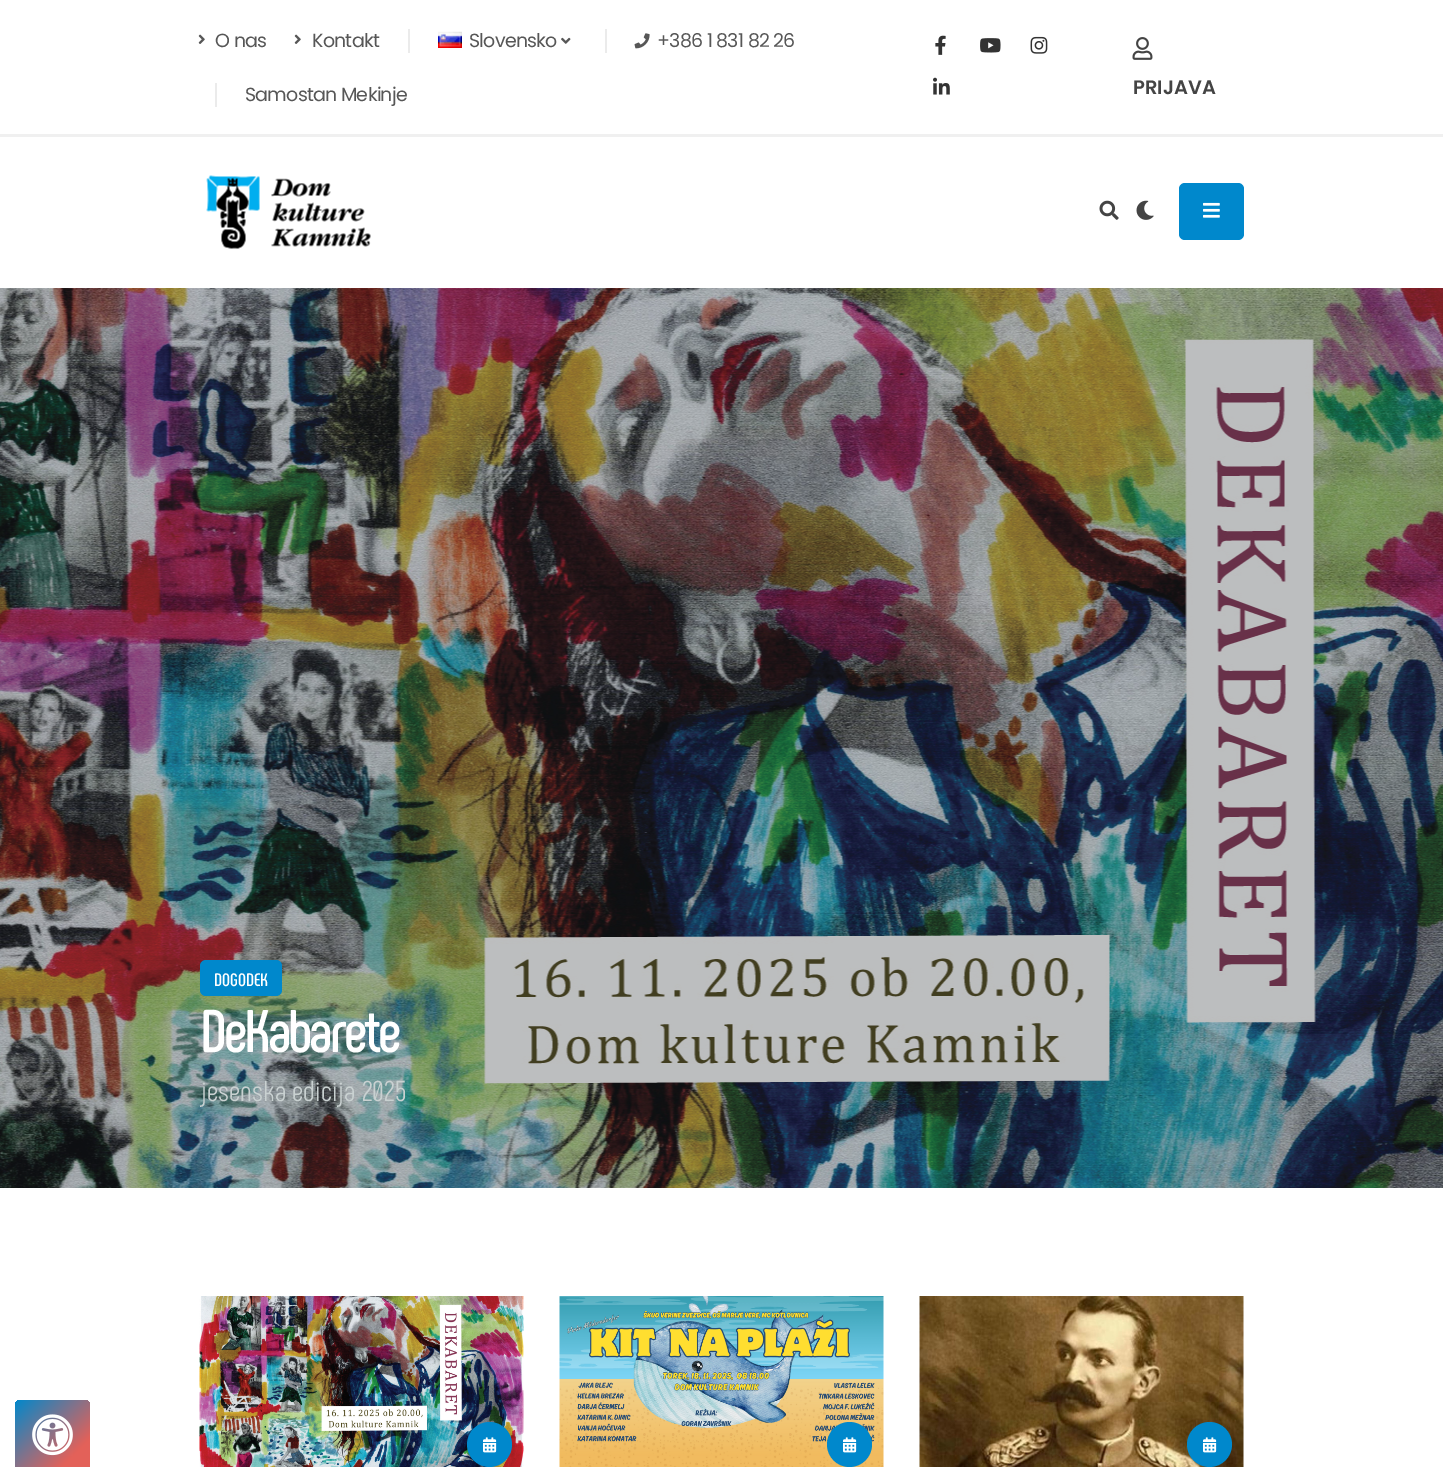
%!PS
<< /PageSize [1443 1467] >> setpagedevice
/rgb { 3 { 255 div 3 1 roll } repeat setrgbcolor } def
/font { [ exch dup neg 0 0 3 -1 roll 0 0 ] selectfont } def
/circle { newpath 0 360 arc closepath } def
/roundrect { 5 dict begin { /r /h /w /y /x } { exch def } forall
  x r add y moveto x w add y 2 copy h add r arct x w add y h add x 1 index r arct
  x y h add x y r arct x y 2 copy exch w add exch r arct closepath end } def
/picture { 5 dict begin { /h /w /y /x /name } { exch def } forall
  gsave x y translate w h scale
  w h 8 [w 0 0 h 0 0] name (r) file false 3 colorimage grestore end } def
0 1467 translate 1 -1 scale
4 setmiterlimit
255 255 255 rgb
0 0 1443 1467 rectfill
240 240 240 rgb
0 134 1443 3 rectfill
(img/1.rgb) 198 34 7 10 picture
(img/1.rgb) 294 34 7 10 picture
235 235 235 rgb
408 29 2 24 rectfill
(img/2.rgb) 438 31 24 17 picture
(img/3.rgb) 561 37 10 7 picture
605 29 2 24 rectfill
(img/4.rgb) 634 33 16 16 picture
215 83 2 24 rectfill
(img/5.rgb) 935 35 11 20 picture
(img/6.rgb) 980 38 21 15 picture
(img/7.rgb) 1030 36 18 18 picture
(img/8.rgb) 933 77 17 18 picture
(img/9.rgb) 1132 37 21 23 picture
(img/10.rgb) 206 175 165 74 picture
(img/11.rgb) 1099 200 20 20 picture
(img/12.rgb) 1136 200 18 20 picture
0 136 204 rgb
1179 183 65 57 6 roundrect fill
(img/13.rgb) 1203 202 17 16 picture
(img/14.rgb) 0 288 1443 900 picture
200 960 82 36 6 roundrect fill
(img/15.rgb) 199 1296 325 171 picture
489.5 1444.5 22.5 circle fill
(img/16.rgb) 483 1437 14 16 picture
(img/17.rgb) 559 1296 325 171 picture
849.5 1444.5 22.5 circle fill
(img/16.rgb) 843 1437 14 16 picture
(img/18.rgb) 919 1296 325 171 picture
1209.5 1444.5 22.5 circle fill
(img/16.rgb) 1203 1437 14 16 picture
gsave 21 1400 moveto 84 1400 lineto 87.5 1400 90 1402.5 90 1406 curveto 90 1467 lineto 15 1467 lineto 15 1406 lineto 15 1402.5 17.5 1400 21 1400 curveto closepath clip newpath
<< /ShadingType 2 /ColorSpace /DeviceRGB /Coords [17 1398 88 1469] /Extend [true true] /Function << /FunctionType 3 /Domain [0 1] /Functions [<< /FunctionType 2 /Domain [0 1] /C0 [0 0.533 0.8] /C1 [0.89 0.38 0.349] /N 1 >> << /FunctionType 2 /Domain [0 1] /C0 [0.89 0.38 0.349] /C1 [0.89 0.38 0.349] /N 1 >>] /Bounds [0.8] /Encode [0 1 0 1] >> >> shfill grestore
(img/19.rgb) 32 1414 41 42 picture
/Poppins-Regular 19 font
87 87 87 rgb
215 47 moveto -0.75 0 (O nas) ashow
312 47 moveto -0.75 0 (Kontakt) ashow
469 47 moveto -0.75 0 (Slovensko) ashow
657 47 moveto -0.75 0 (+386 1 831 82 26) ashow
245 101 moveto -0.75 0 (Samostan Mekinje) ashow
/Poppins-SemiBold 19.5 font
68 68 68 rgb
1133 94 moveto (PRIJAVA) show
/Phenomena-Bold 18 font
255 255 255 rgb
214 986 moveto (DOGODEK) show
/Phenomena-Bold 60 font
200 1052 moveto -3 0 (DeKabarete) ashow
/Phenomena-Regular 28.75 font
201 209 209 rgb
200 1101 moveto (jesenska edicija 2025) show
showpage
